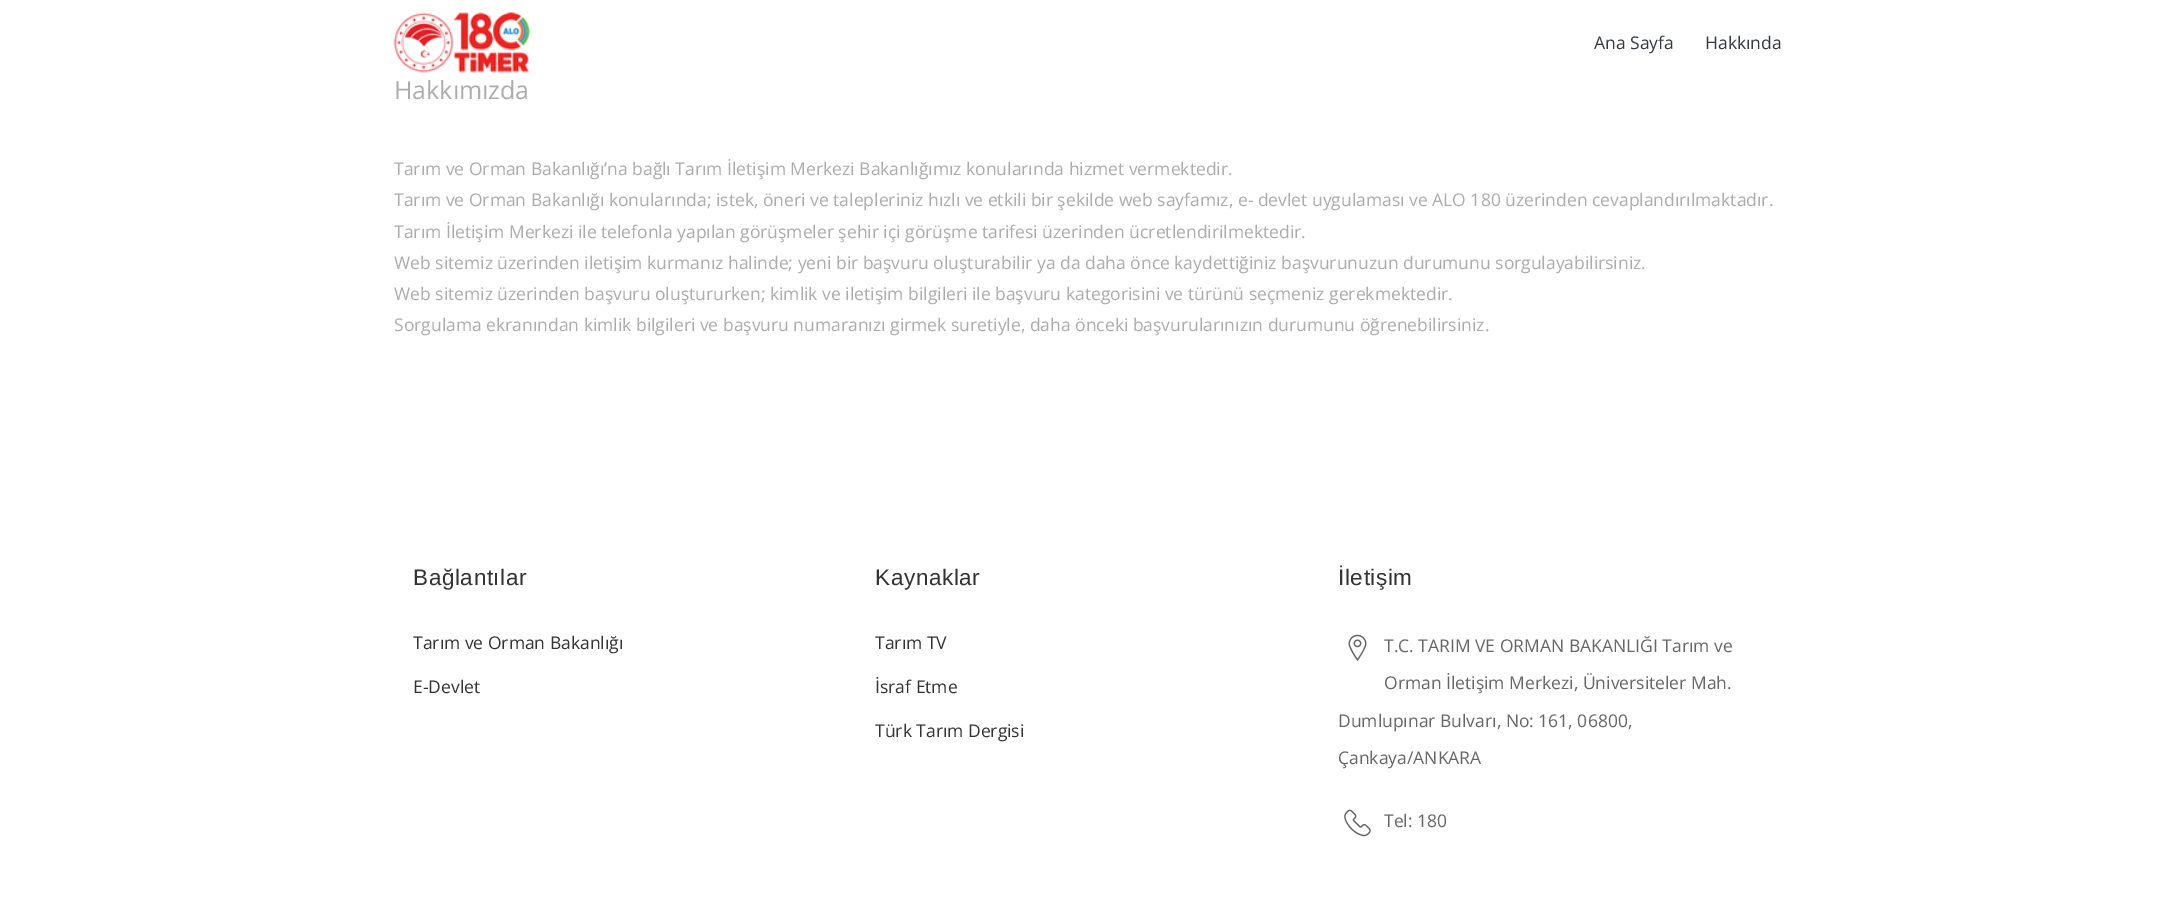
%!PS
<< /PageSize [2174 900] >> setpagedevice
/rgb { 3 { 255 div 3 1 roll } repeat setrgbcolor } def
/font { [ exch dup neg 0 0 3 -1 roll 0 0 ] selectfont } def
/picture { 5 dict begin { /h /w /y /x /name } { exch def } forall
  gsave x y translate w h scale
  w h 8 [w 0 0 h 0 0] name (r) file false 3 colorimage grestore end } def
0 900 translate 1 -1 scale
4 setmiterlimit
255 255 255 rgb
0 0 2174 900 rectfill
(img/1.rgb) 393 12 61 61 picture
(img/2.rgb) 453 12 78 61 picture
(img/3.rgb) 1348 634 19 28 picture
(img/4.rgb) 1344 809 27 28 picture
/OpenSans-Regular 17.5 font
52 58 64 rgb
1594 49 moveto (Ana Sayfa) show
1705 49 moveto (Hakkında) show
/OpenSans-Regular 25 font
171 172 174 rgb
394 99 moveto (Hakkımızda) show
/OpenSans-Regular 17.5 font
[
  [(Tarım ve Orman Bakanlığı’na bağlı Tarım İletişim Merkezi Bakanlığımız konularında hizmet vermektedir.) 394 175]
  [(Tarım ve Orman Bakanlığı konularında; istek, öneri ve talepleriniz hızlı ve etkili bir şekilde web sayfamız, e- devlet uygulaması ve ALO 180 üzerinden cevaplandırılmaktadır.) 394 206]
  [(Tarım İletişim Merkezi ile telefonla yapılan görüşmeler şehir içi görüşme tarifesi üzerinden ücretlendirilmektedir.) 394 238]
  [(Web sitemiz üzerinden iletişim kurmanız halinde; yeni bir başvuru oluşturabilir ya da daha önce kaydettiğiniz başvurunuzun durumunu sorgulayabilirsiniz.) 394 269]
  [(Web sitemiz üzerinden başvuru oluştururken; kimlik ve iletişim bilgileri ile başvuru kategorisini ve türünü seçmeniz gerekmektedir.) 394 300]
  [(Sorgulama ekranından kimlik bilgileri ve başvuru numaranızı girmek suretiyle, daha önceki başvurularınızın durumunu öğrenebilirsiniz.) 394 331]
] { aload pop moveto show } forall
/LiberationSans-Regular 22.5 font
51 51 51 rgb
413 585 moveto 0.6 0 (Bağlantılar) ashow
/OpenSans-Regular 17.5 font
413 649 moveto (Tarım ve Orman Bakanlığı) show
413 693 moveto (E-Devlet) show
/LiberationSans-Regular 22.5 font
875 585 moveto 0.6 0 (Kaynaklar) ashow
/OpenSans-Regular 17.5 font
[
  [(Tarım TV) 875 649]
  [(İsraf Etme) 875 693]
  [(Türk Tarım Dergisi) 875 737]
] { aload pop moveto show } forall
/LiberationSans-Regular 22.5 font
1338 585 moveto 0.6 0 (İletişim) ashow
/OpenSans-Regular 17.5 font
102 102 102 rgb
[
  [(T.C. TARIM VE ORMAN BAKANLIĞI Tarım ve) 1384 652]
  [(Orman İletişim Merkezi, Üniversiteler Mah.) 1384 689]
  [(Dumlupınar Bulvarı, No: 161, 06800,) 1338 727]
  [(Çankaya/ANKARA) 1338 764]
  [(Tel: 180) 1384 827]
] { aload pop moveto show } forall
showpage
